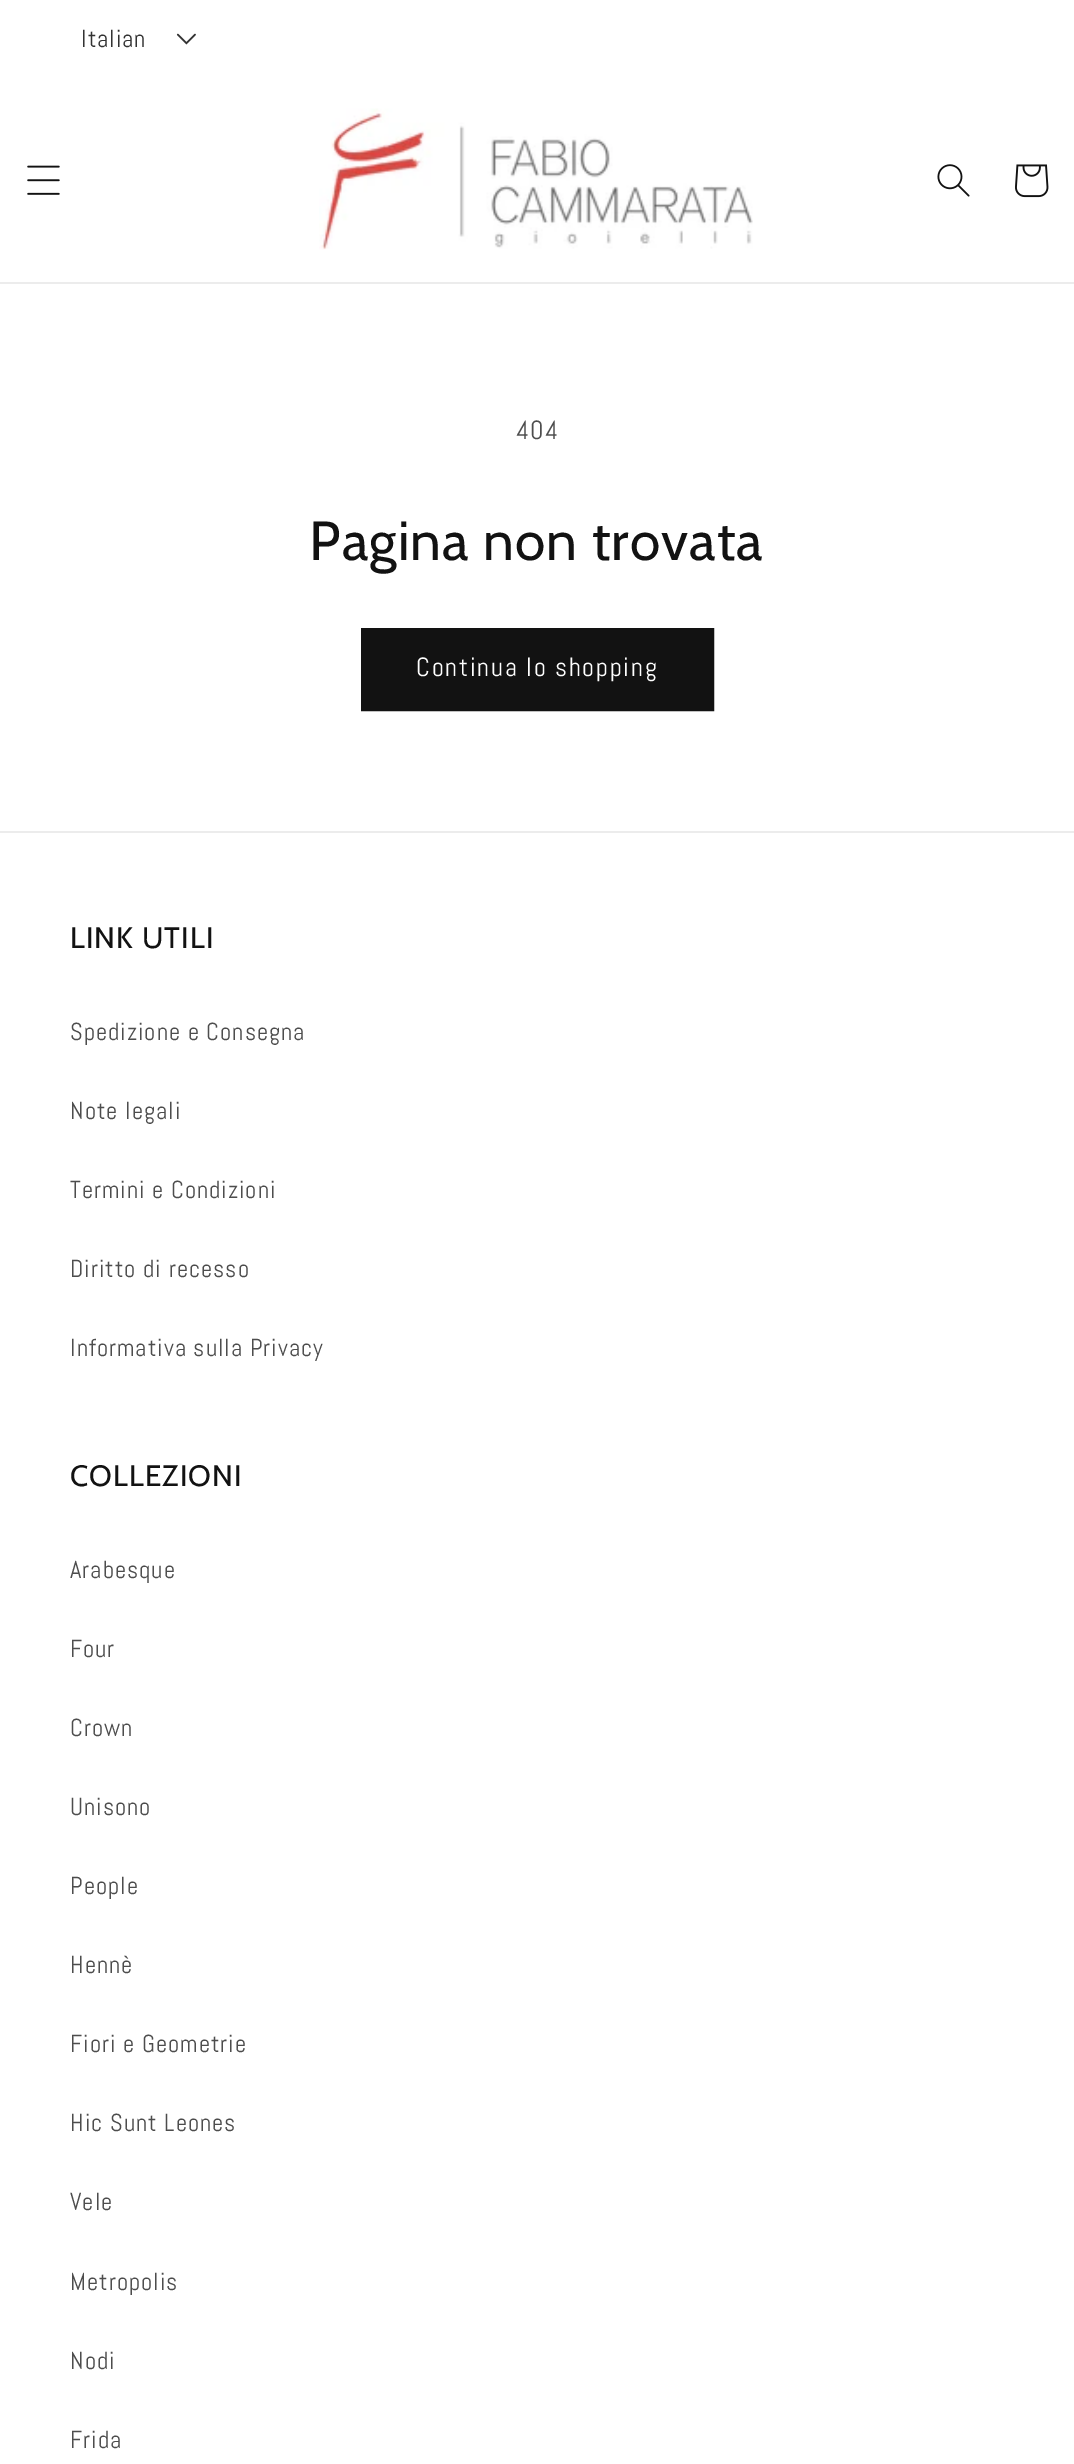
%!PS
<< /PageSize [1074 2464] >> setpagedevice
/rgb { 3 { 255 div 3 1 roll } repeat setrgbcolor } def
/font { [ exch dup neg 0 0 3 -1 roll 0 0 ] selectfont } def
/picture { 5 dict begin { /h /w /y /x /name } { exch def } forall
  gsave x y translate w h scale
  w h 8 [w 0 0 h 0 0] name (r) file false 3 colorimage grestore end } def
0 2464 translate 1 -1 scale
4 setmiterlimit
255 255 255 rgb
0 0 1074 2464 rectfill
(img/1.rgb) 176 33 20 12 picture
236 236 236 rgb
0 282 1074 2 rectfill
(img/2.rgb) 27 165 33 30 picture
(img/3.rgb) 319 108 434 142 picture
(img/4.rgb) 937 164 33 33 picture
(img/5.rgb) 1015 164 34 34 picture
18 18 18 rgb
2 setlinewidth
362 629 351 81 rectstroke
363 630 349 79 rectfill
236 236 236 rgb
0 831 1074 2 rectfill
/Abel-Regular 24.5 font
51 51 51 rgb
81 47 moveto 1.05 0 (Italian) ashow
/Abel-Regular 26.25 font
77 77 77 rgb
516 439 moveto 1.05 0 (404) ashow
/Cabin-Regular 55 font
18 18 18 rgb
309 560 moveto 1.1 0 (Pagina non trovata) ashow
/Abel-Regular 26.25 font
255 255 255 rgb
416 676 moveto 1.75 0 (Continua lo shopping) ashow
/Cabin-Regular 29.5 font
18 18 18 rgb
70 948 moveto 1.1 0 (LINK UTILI) ashow
/Abel-Regular 24.5 font
77 77 77 rgb
70 1040 moveto 1.05 0 (Spedizione e Consegna) ashow
70 1119 moveto 1.05 0 (Note legali) ashow
70 1198 moveto 1.05 0 (Termini e Condizioni) ashow
70 1277 moveto 1.05 0 (Diritto di recesso) ashow
70 1356 moveto 1.05 0 (Informativa sulla Privacy) ashow
/Cabin-Regular 29.5 font
18 18 18 rgb
70 1486 moveto 1.1 0 (COLLEZIONI) ashow
/Abel-Regular 24.5 font
77 77 77 rgb
70 1578 moveto 1.05 0 (Arabesque) ashow
70 1657 moveto 1.05 0 (Four) ashow
70 1736 moveto 1.05 0 (Crown) ashow
70 1815 moveto 1.05 0 (Unisono) ashow
70 1894 moveto 1.05 0 (People) ashow
70 1973 moveto 1.05 0 (Hennè) ashow
70 2052 moveto 1.05 0 (Fiori e Geometrie) ashow
70 2131 moveto 1.05 0 (Hic Sunt Leones) ashow
70 2210 moveto 1.05 0 (Vele) ashow
70 2290 moveto 1.05 0 (Metropolis) ashow
70 2369 moveto 1.05 0 (Nodi) ashow
70 2448 moveto 1.05 0 (Frida) ashow
showpage
